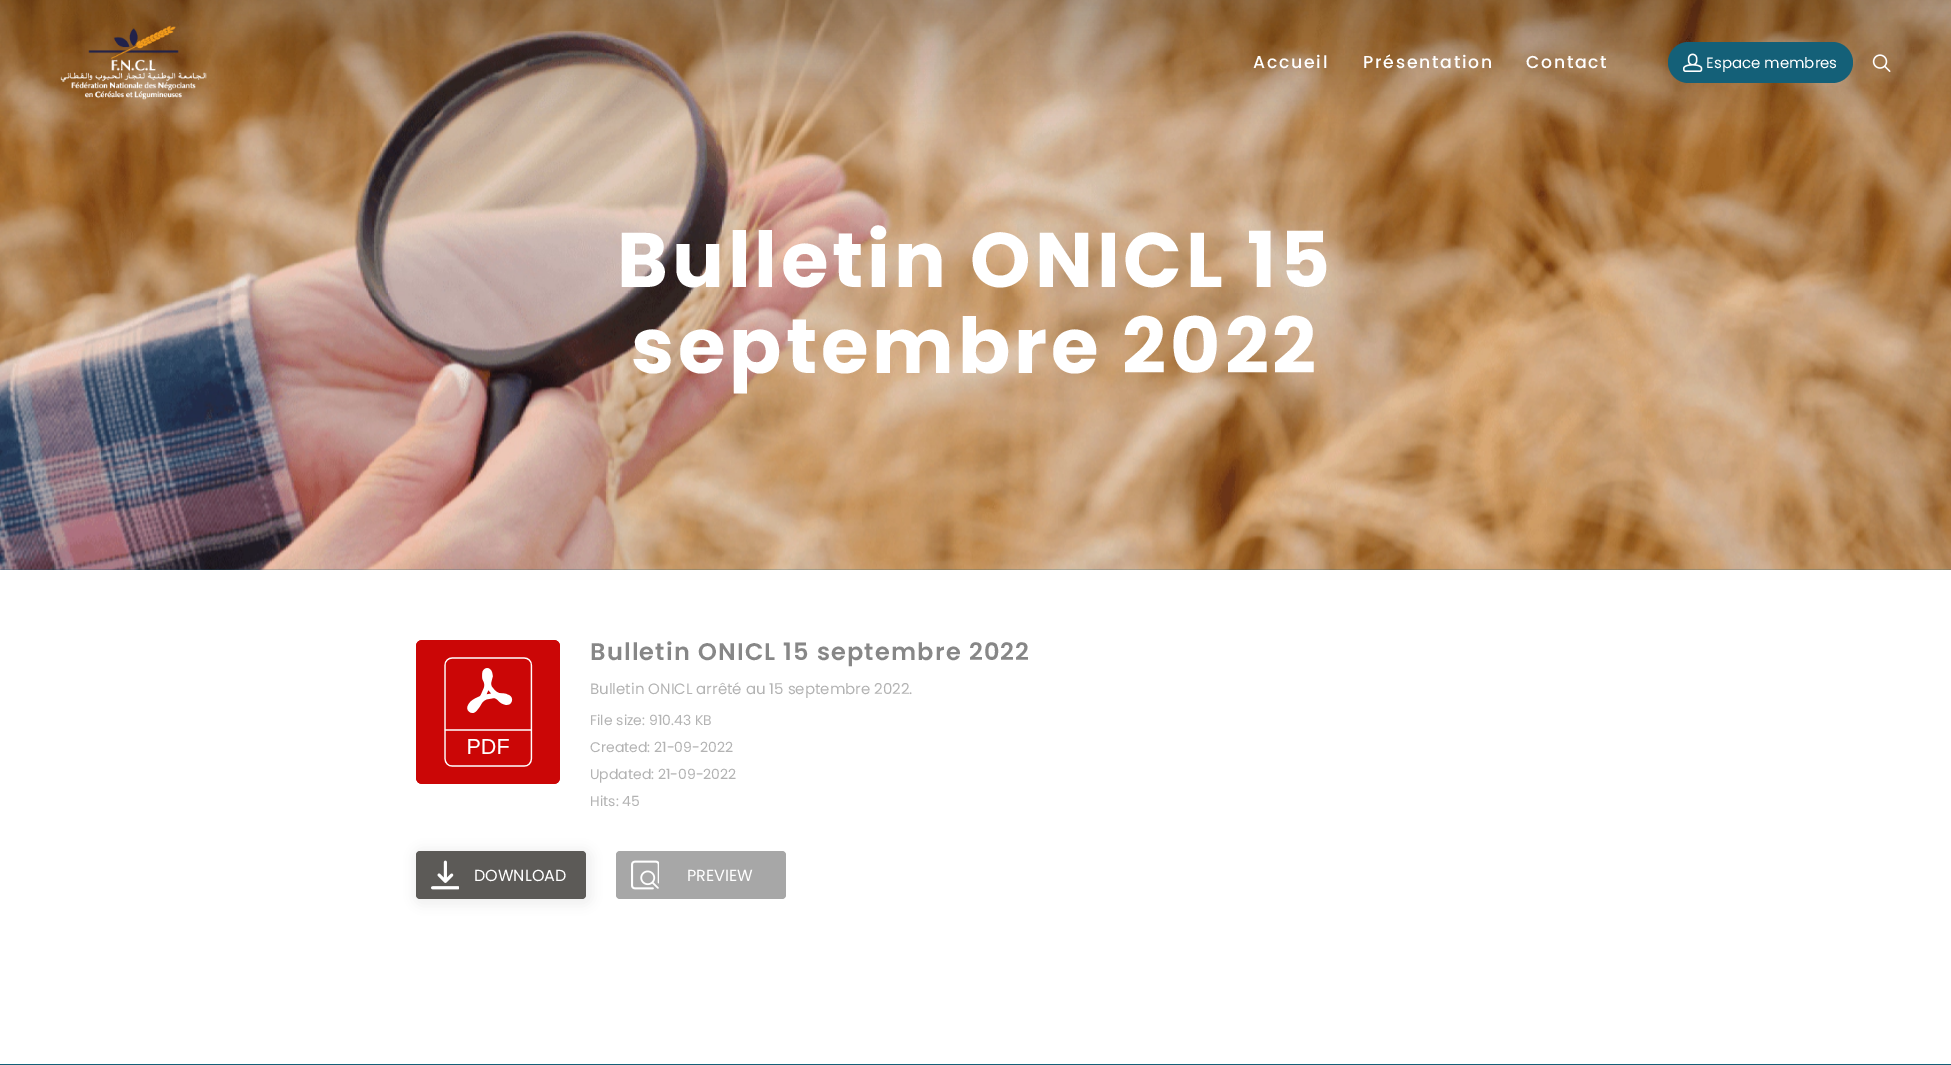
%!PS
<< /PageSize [1951 1065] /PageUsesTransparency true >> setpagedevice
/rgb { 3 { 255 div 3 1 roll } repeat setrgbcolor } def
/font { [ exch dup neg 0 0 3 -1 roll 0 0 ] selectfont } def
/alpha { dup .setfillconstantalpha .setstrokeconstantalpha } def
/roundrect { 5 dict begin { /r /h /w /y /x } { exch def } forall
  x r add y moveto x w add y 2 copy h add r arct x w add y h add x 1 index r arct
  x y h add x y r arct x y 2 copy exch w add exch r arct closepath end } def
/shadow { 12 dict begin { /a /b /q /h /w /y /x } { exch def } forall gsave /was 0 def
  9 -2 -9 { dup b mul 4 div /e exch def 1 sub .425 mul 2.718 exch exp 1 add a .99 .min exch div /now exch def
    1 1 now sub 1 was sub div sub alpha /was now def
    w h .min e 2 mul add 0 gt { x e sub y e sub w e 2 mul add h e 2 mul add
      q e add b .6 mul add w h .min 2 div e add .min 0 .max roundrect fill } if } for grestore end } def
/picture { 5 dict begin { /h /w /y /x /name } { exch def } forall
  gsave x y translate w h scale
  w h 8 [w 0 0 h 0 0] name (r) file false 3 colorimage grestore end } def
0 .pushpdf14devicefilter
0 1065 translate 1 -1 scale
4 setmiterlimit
255 255 255 rgb
0 0 1951 1065 rectfill
(img/4.rgb) 0 0 1951 570 picture
(img/1.rgb) 60 25 147 75 picture
20 96 120 rgb
1668 42 185 41 20.5 roundrect fill
(img/2.rgb) 1683 53 20 19 picture
(img/3.rgb) 1872 54 19 18 picture
(img/5.rgb) 416 640 144 144 picture
240 240 240 rgb
413 848 180 58 9 6 1 shadow
92 90 87 rgb
416 851 170 48 4 roundrect fill
(img/6.rgb) 431 860 28 30 picture
167 167 167 rgb
616 851 170 48 4 roundrect fill
(img/7.rgb) 631 860 28 30 picture
19 95 118 rgb
0 1064 1951 1 rectfill
/Poppins-Medium 17.25 font
255 255 255 rgb
1253 68 moveto 1.75 0 (Accueil) ashow
1363 68 moveto 1.75 0 (Présentation) ashow
1526 68 moveto 1.75 0 (Contact) ashow
/Poppins-Regular 15 font
1706 68 moveto (Espace membres) show
/Poppins-Bold 77.1 font
617 287 moveto 3.9 0 (Bulletin ONICL 15) ashow
631 373 moveto 3.9 0 (septembre 2022) ashow
/Poppins-SemiBold 24 font
135 135 135 rgb
590 660 moveto 1.2 0 (Bulletin ONICL 15 septembre 2022) ashow
/Poppins-Regular 15 font
179 179 179 rgb
590 694 moveto (Bulletin ONICL arrêté au 15 septembre 2022.) show
/Poppins-Regular 14 font
[
  [(File size: 910.43 KB) 590 725]
  [(Created: 21-09-2022) 590 752]
  [(Updated: 21-09-2022) 590 779]
  [(Hits: 45) 590 806]
] { aload pop moveto show } forall
/Poppins-Regular 16 font
255 255 255 rgb
474 881 moveto (DOWNLOAD) show
687 881 moveto (PREVIEW) show
.poppdf14devicefilter showpage
